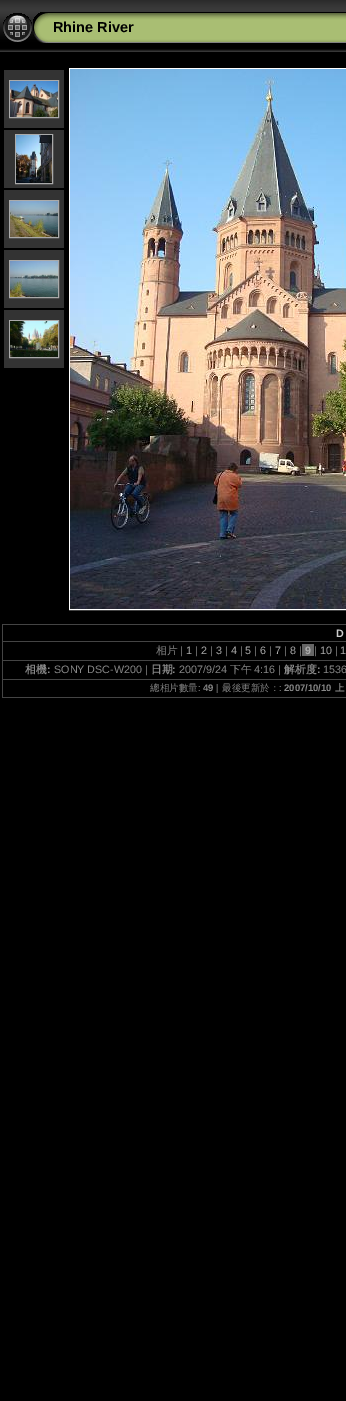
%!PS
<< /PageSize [346 1401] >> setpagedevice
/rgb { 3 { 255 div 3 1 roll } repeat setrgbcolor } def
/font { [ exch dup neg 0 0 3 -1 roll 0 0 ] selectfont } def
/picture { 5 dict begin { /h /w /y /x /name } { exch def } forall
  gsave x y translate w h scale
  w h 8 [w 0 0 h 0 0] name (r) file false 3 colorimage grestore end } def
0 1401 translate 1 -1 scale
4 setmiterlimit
0 0 0 rgb
0 0 346 1401 rectfill
(img/1.rgb) 0 0 346 52 picture
(img/2.rgb) 3 13 29 29 picture
(img/3.rgb) 33 12 20 31 picture
(img/4.rgb) 53 12 293 31 picture
51 51 51 rgb
4 70 60 58 rectfill
170 170 170 rgb
9.5 80.5 49 37 rectstroke
(img/5.rgb) 10 81 48 36 picture
51 51 51 rgb
4 130 60 58 rectfill
170 170 170 rgb
15.5 134.5 37 49 rectstroke
(img/6.rgb) 16 135 36 48 picture
51 51 51 rgb
4 190 60 58 rectfill
170 170 170 rgb
9.5 200.5 49 37 rectstroke
(img/7.rgb) 10 201 48 36 picture
51 51 51 rgb
4 250 60 58 rectfill
170 170 170 rgb
9.5 260.5 49 37 rectstroke
(img/8.rgb) 10 261 48 36 picture
51 51 51 rgb
4 310 60 58 rectfill
170 170 170 rgb
9.5 320.5 49 37 rectstroke
(img/9.rgb) 10 321 48 36 picture
255 255 255 rgb
69.5 68.5 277 541 rectstroke
(img/10.rgb) 70 69 276 540 picture
[
  [2 624 344 1 68 68 68]
  [2 697 344 1 68 68 68]
  [2 624 1 74 68 68 68]
  [2 641 344 1 68 68 68]
  [302 644 12 12 102 102 102]
  [2 660 344 1 68 68 68]
  [2 679 344 1 68 68 68]
] { aload pop rgb rectfill } forall
/LiberationSans-Bold 14.5 font
0 0 0 rgb
53 32 moveto (Rhine River) show
/LiberationSans-Bold 10.75 font
204 204 204 rgb
336 637 moveto (D) show
/WenQuanYiZenHei-Medium 10.75 font
136 136 136 rgb
156 654 moveto (相片) show
/LiberationSans-Regular 10.75 font
180 654 moveto (|) show
170 170 170 rgb
186 654 moveto (1) show
136 136 136 rgb
195 654 moveto (|) show
170 170 170 rgb
201 654 moveto (2) show
136 136 136 rgb
210 654 moveto (|) show
170 170 170 rgb
216 654 moveto (3) show
136 136 136 rgb
225 654 moveto (|) show
170 170 170 rgb
231 654 moveto (4) show
136 136 136 rgb
240 654 moveto (|) show
170 170 170 rgb
245 654 moveto (5) show
136 136 136 rgb
254 654 moveto (|) show
170 170 170 rgb
260 654 moveto (6) show
136 136 136 rgb
269 654 moveto (|) show
170 170 170 rgb
275 654 moveto (7) show
136 136 136 rgb
284 654 moveto (|) show
170 170 170 rgb
290 654 moveto (8) show
136 136 136 rgb
299 654 moveto (|) show
/LiberationSans-Bold 10.75 font
170 170 170 rgb
305 654 moveto (9) show
/LiberationSans-Regular 10.75 font
136 136 136 rgb
314 654 moveto (|) show
170 170 170 rgb
320 654 moveto (10) show
136 136 136 rgb
335 654 moveto (|) show
170 170 170 rgb
340 654 moveto (1) show
/WenQuanYiZenHei-Bold 10.75 font
136 136 136 rgb
25 673 moveto (相機) show
/LiberationSans-Bold 10.75 font
47 673 moveto (:) show
/LiberationSans-Regular 10.75 font
54 673 moveto (SONY DSC-W200 |) show
/WenQuanYiZenHei-Bold 10.75 font
151 673 moveto (日期) show
/LiberationSans-Bold 10.75 font
172 673 moveto (:) show
/LiberationSans-Regular 10.75 font
179 673 moveto (2007/9/24) show
/WenQuanYiZenHei-Medium 10.75 font
230 673 moveto (下午) show
/LiberationSans-Regular 10.75 font
254 673 moveto (4:16 |) show
/WenQuanYiZenHei-Bold 10.75 font
284 673 moveto (解析度) show
/LiberationSans-Bold 10.75 font
317 673 moveto (:) show
/LiberationSans-Regular 10.75 font
323 673 moveto (1536) show
/WenQuanYiZenHei-Medium 9.5 font
150 691 moveto (總相片數量) show
/LiberationSans-Regular 9.5 font
198 691 moveto (:) show
/LiberationSans-Bold 9.5 font
203 691 moveto (49) show
/LiberationSans-Regular 9.5 font
216 691 moveto (|) show
/WenQuanYiZenHei-Medium 9.5 font
222 691 moveto (最後更新於：) show
/LiberationSans-Regular 9.5 font
279 691 moveto (:) show
/LiberationSans-Bold 9.5 font
284 691 moveto (2007/10/10) show
/WenQuanYiZenHei-Bold 9.5 font
335 691 moveto (上) show
showpage
